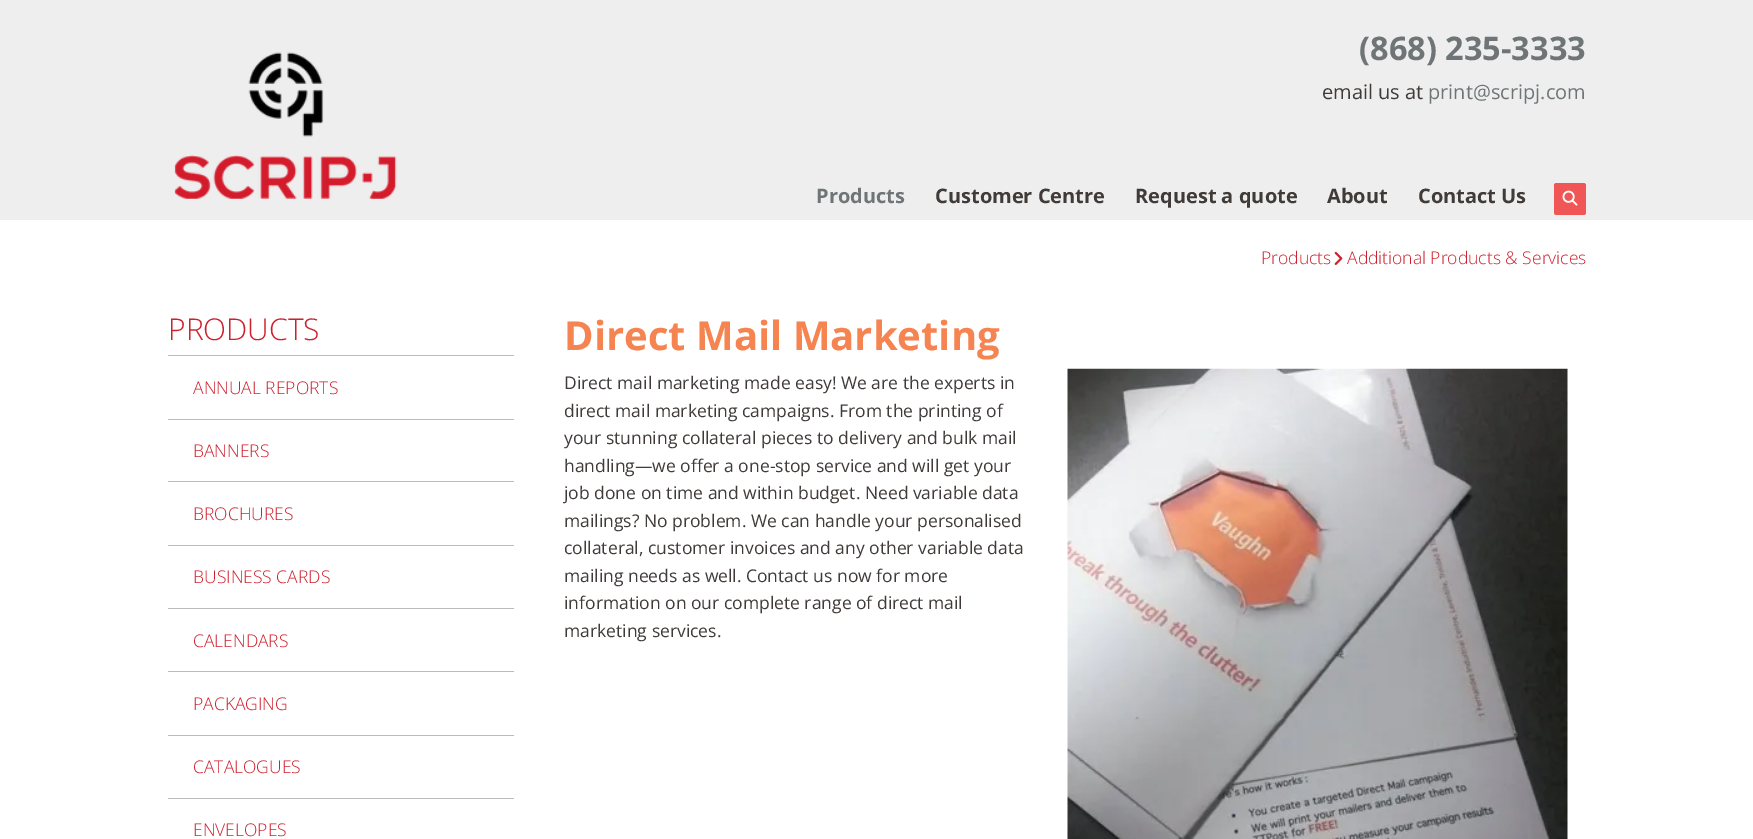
%!PS
<< /PageSize [1753 839] >> setpagedevice
/rgb { 3 { 255 div 3 1 roll } repeat setrgbcolor } def
/font { [ exch dup neg 0 0 3 -1 roll 0 0 ] selectfont } def
/roundrect { 5 dict begin { /r /h /w /y /x } { exch def } forall
  x r add y moveto x w add y 2 copy h add r arct x w add y h add x 1 index r arct
  x y h add x y r arct x y 2 copy exch w add exch r arct closepath end } def
/picture { 5 dict begin { /h /w /y /x /name } { exch def } forall
  gsave x y translate w h scale
  w h 8 [w 0 0 h 0 0] name (r) file false 3 colorimage grestore end } def
0 839 translate 1 -1 scale
4 setmiterlimit
255 255 255 rgb
0 0 1753 839 rectfill
238 238 238 rgb
0 0 1753 220 rectfill
(img/1.rgb) 174 52 223 147 picture
240 86 85 rgb
1554 183 32 32 2.5 roundrect fill
(img/2.rgb) 1562 190 16 16 picture
(img/3.rgb) 1334 251 9 14 picture
[
  [168 355 346 1 187 187 187]
  [168 419 346 1 187 187 187]
  [168 481 346 1 187 187 187]
  [168 545 346 1 187 187 187]
  [168 608 346 1 187 187 187]
  [168 671 346 1 187 187 187]
  [168 735 346 1 187 187 187]
  [168 798 346 1 187 187 187]
] { aload pop rgb rectfill } forall
(img/4.rgb) 1067 368 501 471 picture
/OpenSans-Bold 32.5 font
111 117 119 rgb
1359 60 moveto (\(868\) 235-3333) show
/OpenSans-Regular 20 font
64 59 56 rgb
1322 99 moveto (email us at) show
111 117 119 rgb
1428 99 moveto (print@scripj.com) show
/OpenSans-Bold 20 font
816 203 moveto (Products) show
64 59 56 rgb
[
  [(Customer Centre) 935 203]
  [(Request a quote) 1135 203]
  [(About) 1327 203]
  [(Contact Us) 1418 203]
] { aload pop moveto show } forall
/OpenSans-Light 17.5 font
207 32 46 rgb
1261 264 moveto (Products) show
1347 264 moveto (Additional Products & Services) show
/OpenSans-Light 30 font
168 340 moveto (PRODUCTS) show
/OpenSans-Light 17.5 font
[
  [(ANNUAL REPORTS) 193 394]
  [(BANNERS) 193 457]
  [(BROCHURES) 193 520]
  [(BUSINESS CARDS) 193 583]
  [(CALENDARS) 193 647]
  [(PACKAGING) 193 710]
  [(CATALOGUES) 193 773]
  [(ENVELOPES) 193 836]
] { aload pop moveto show } forall
/OpenSans-Bold 40 font
245 132 81 rgb
564 350 moveto (Direct Mail Marketing) show
/OpenSans-Regular 17.5 font
64 59 56 rgb
[
  [(Direct mail marketing made easy! We are the experts in) 564 389]
  [(direct mail marketing campaigns. From the printing of) 564 417]
  [(your stunning collateral pieces to delivery and bulk mail) 564 444]
  [(handling—we offer a one-stop service and will get your) 564 472]
  [(job done on time and within budget. Need variable data) 564 499]
  [(mailings? No problem. We can handle your personalised) 564 527]
  [(collateral, customer invoices and any other variable data) 564 554]
  [(mailing needs as well. Contact us now for more) 564 582]
  [(information on our complete range of direct mail) 564 609]
  [(marketing services.) 564 637]
] { aload pop moveto show } forall
showpage
